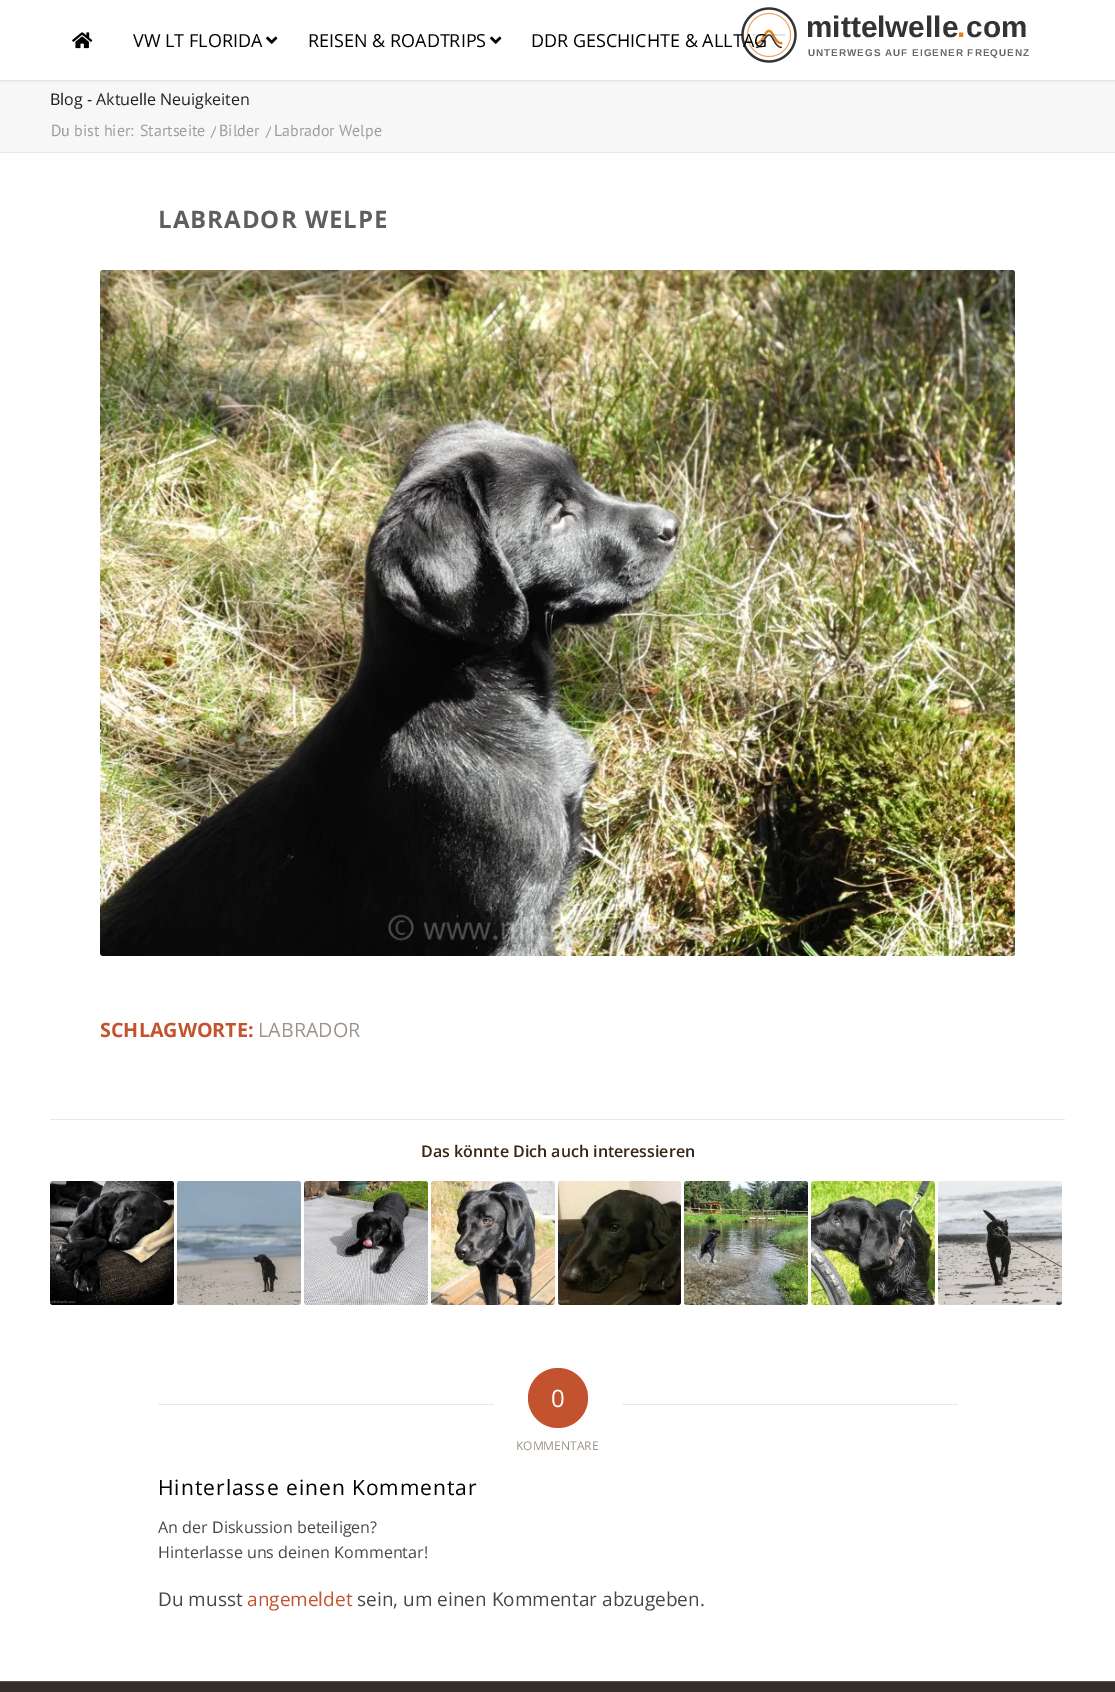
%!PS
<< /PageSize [1115 1692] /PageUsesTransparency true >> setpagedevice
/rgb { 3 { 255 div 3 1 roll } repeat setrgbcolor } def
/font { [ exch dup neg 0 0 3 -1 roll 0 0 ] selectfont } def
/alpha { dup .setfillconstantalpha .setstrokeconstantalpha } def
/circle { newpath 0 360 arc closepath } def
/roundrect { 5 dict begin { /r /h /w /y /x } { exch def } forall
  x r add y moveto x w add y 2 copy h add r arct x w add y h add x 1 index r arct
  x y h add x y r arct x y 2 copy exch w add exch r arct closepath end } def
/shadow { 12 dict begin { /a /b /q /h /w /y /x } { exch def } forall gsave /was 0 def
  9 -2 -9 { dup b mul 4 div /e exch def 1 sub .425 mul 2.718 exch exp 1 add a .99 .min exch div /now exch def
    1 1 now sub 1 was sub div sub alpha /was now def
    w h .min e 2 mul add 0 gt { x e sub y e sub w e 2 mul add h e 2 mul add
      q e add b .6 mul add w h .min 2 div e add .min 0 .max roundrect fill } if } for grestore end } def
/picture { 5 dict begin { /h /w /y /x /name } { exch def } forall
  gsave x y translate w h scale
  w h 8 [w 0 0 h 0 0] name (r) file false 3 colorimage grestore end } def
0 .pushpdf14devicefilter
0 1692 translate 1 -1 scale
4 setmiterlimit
255 255 255 rgb
0 0 1115 1692 rectfill
247 247 247 rgb
0 80 1115 72 rectfill
0 0 0 rgb
-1 -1 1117 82 0 1 0.1 shadow
255 255 255 rgb
0 0 1115 80 rectfill
(img/1.rgb) 72 32 21 17 picture
(img/2.rgb) 266 36 12 8 picture
(img/2.rgb) 490 36 12 8 picture
(img/3.rgb) 741 7 56 56 picture
235 232 226 rgb
0 152 1115 1 rectfill
(img/4.rgb) 100 270 915 686 picture
50 1119 1015 1 rectfill
(img/5.rgb) 50 1181 124 124 picture
(img/6.rgb) 177 1181 124 124 picture
(img/7.rgb) 304 1181 124 124 picture
(img/8.rgb) 431 1181 124 124 picture
(img/9.rgb) 558 1181 123 124 picture
(img/10.rgb) 684 1181 124 124 picture
(img/11.rgb) 811 1181 124 124 picture
(img/12.rgb) 938 1181 124 124 picture
158 1404 336 1 rectfill
195 82 47 rgb
558 1398 30 circle fill
[
  [622 1404 336 1 235 232 226]
  [0 1682 1115 10 52 47 41]
  [0 1681 1115 1 87 81 73]
] { aload pop rgb rectfill } forall
/OpenSans-Regular 18 font
0 0 0 rgb
[
  [(VW LT FLORIDA) 133 47]
  [(REISEN & ROADTRIPS) 308 47]
  [(DDR GESCHICHTE & ALLTAG) 531 47]
] { aload pop moveto show } forall
/LiberationSans-Bold 29.75 font
51 51 51 rgb
806 37 moveto (mittelwelle com) show
230 126 34 rgb
957 37 moveto (.) show
/LiberationSans-Bold 9.9 font
102 102 102 rgb
808 56 moveto 1 0 (UNTERWEGS AUF EIGENER FREQUENZ) ashow
/OpenSans-Regular 16 font
33 32 32 rgb
50 105 moveto (Blog - Aktuelle Neuigkeiten) show
/PTSans-Regular 16 font
158 158 158 rgb
51 136 moveto (Du bist hier:) show
140 136 moveto (Startseite) show
gsave
208 118 8 24 rectclip
211 136 moveto (/) show
grestore
219 136 moveto (Bilder) show
gsave
263 118 8 24 rectclip
266 136 moveto (/) show
grestore
274 136 moveto (Labrador Welpe) show
/OpenSans-Bold 24 font
94 94 94 rgb
158 228 moveto 1 0 (LABRADOR WELPE) ashow
/OpenSans-Bold 19.75 font
195 82 47 rgb
100 1037 moveto (SCHLAGWORTE:) show
/OpenSans-Regular 19.75 font
156 146 136 rgb
258 1037 moveto (LABRADOR) show
/OpenSans-SemiBold 16 font
56 36 16 rgb
421 1157 moveto (Das könnte Dich auch interessieren) show
/OpenSans-Regular 24 font
255 255 255 rgb
551 1407 moveto (0) show
/OpenSans-Regular 12 font
156 146 136 rgb
516 1450 moveto (KOMMENTARE) show
/OpenSans-Regular 21 font
0 0 0 rgb
158 1495 moveto 1 0 (Hinterlasse einen Kommentar) ashow
/OpenSans-Regular 16.1 font
71 71 71 rgb
158 1533 moveto (An der Diskussion beteiligen?) show
158 1558 moveto (Hinterlasse uns deinen Kommentar!) show
/OpenSans-Regular 19 font
158 1606 moveto (Du musst) show
195 82 47 rgb
247 1606 moveto (angemeldet) show
71 71 71 rgb
357 1606 moveto (sein, um einen Kommentar abzugeben.) show
.poppdf14devicefilter showpage
